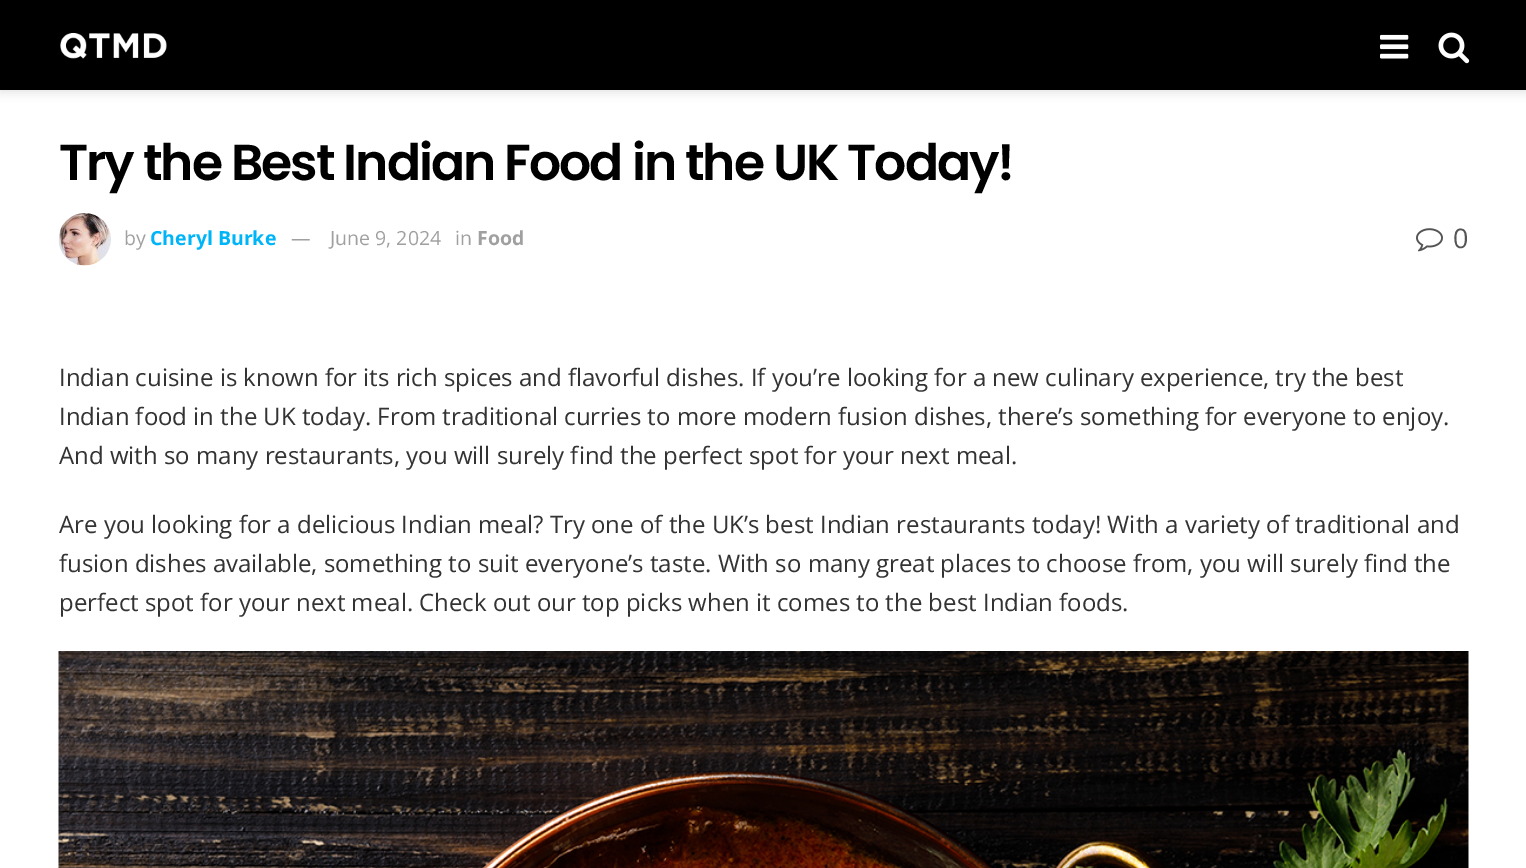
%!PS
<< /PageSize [1526 868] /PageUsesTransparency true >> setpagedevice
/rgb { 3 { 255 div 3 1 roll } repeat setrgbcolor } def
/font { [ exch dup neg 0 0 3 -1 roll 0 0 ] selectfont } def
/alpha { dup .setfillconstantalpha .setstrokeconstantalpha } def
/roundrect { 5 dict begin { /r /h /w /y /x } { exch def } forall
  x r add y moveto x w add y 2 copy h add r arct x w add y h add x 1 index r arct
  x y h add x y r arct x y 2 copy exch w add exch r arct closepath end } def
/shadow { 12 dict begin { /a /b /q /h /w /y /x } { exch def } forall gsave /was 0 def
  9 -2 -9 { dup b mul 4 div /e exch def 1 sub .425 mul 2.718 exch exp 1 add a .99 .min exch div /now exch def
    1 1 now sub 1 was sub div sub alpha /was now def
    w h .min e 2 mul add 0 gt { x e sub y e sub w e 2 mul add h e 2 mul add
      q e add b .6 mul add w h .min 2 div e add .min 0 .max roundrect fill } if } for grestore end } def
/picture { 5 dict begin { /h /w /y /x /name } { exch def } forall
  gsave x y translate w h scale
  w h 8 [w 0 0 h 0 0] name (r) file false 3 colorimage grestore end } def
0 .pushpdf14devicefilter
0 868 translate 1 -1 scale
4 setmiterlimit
255 255 255 rgb
0 0 1526 868 rectfill
0 0 0 rgb
0 3 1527 90 0 4.5 0.1 shadow
0 0 1526 90 rectfill
(img/1.rgb) 60 32 107 27 picture
(img/2.rgb) 1380 34 29 25 picture
(img/3.rgb) 1438 32 32 32 picture
(img/4.rgb) 58 213 53 53 picture
(img/5.rgb) 1416 228 27 24 picture
(img/6.rgb) 58 651 1411 217 picture
/Poppins-SemiBold 50.4 font
59 180 moveto -2 0 (Try the Best Indian Food in the UK Today!) ashow
/OpenSans-Regular 19.5 font
160 160 160 rgb
124 245 moveto (by) show
/OpenSans-Bold 19.5 font
0 181 247 rgb
150 245 moveto (Cheryl Burke) show
/OpenSans-Regular 19.5 font
160 160 160 rgb
[
  [(—) 291 245]
  [(June 9, 2024) 330 245]
  [(in) 455 245]
] { aload pop moveto show } forall
/OpenSans-Bold 19.5 font
477 245 moveto (Food) show
/OpenSans-Regular 27 font
85 85 85 rgb
1453 248 moveto (0) show
/OpenSans-Regular 24 font
51 51 51 rgb
[
  [(Indian cuisine is known for its rich spices and flavorful dishes. If you’re looking for a new culinary experience, try the best) 59 386]
  [(Indian food in the UK today. From traditional curries to more modern fusion dishes, there’s something for everyone to enjoy.) 59 425]
  [(And with so many restaurants, you will surely find the perfect spot for your next meal.) 59 464]
  [(Are you looking for a delicious Indian meal? Try one of the UK’s best Indian restaurants today! With a variety of traditional and) 59 533]
  [(fusion dishes available, something to suit everyone’s taste. With so many great places to choose from, you will surely find the) 59 572]
  [(perfect spot for your next meal. Check out our top picks when it comes to the best Indian foods.) 59 611]
] { aload pop moveto show } forall
.poppdf14devicefilter showpage
